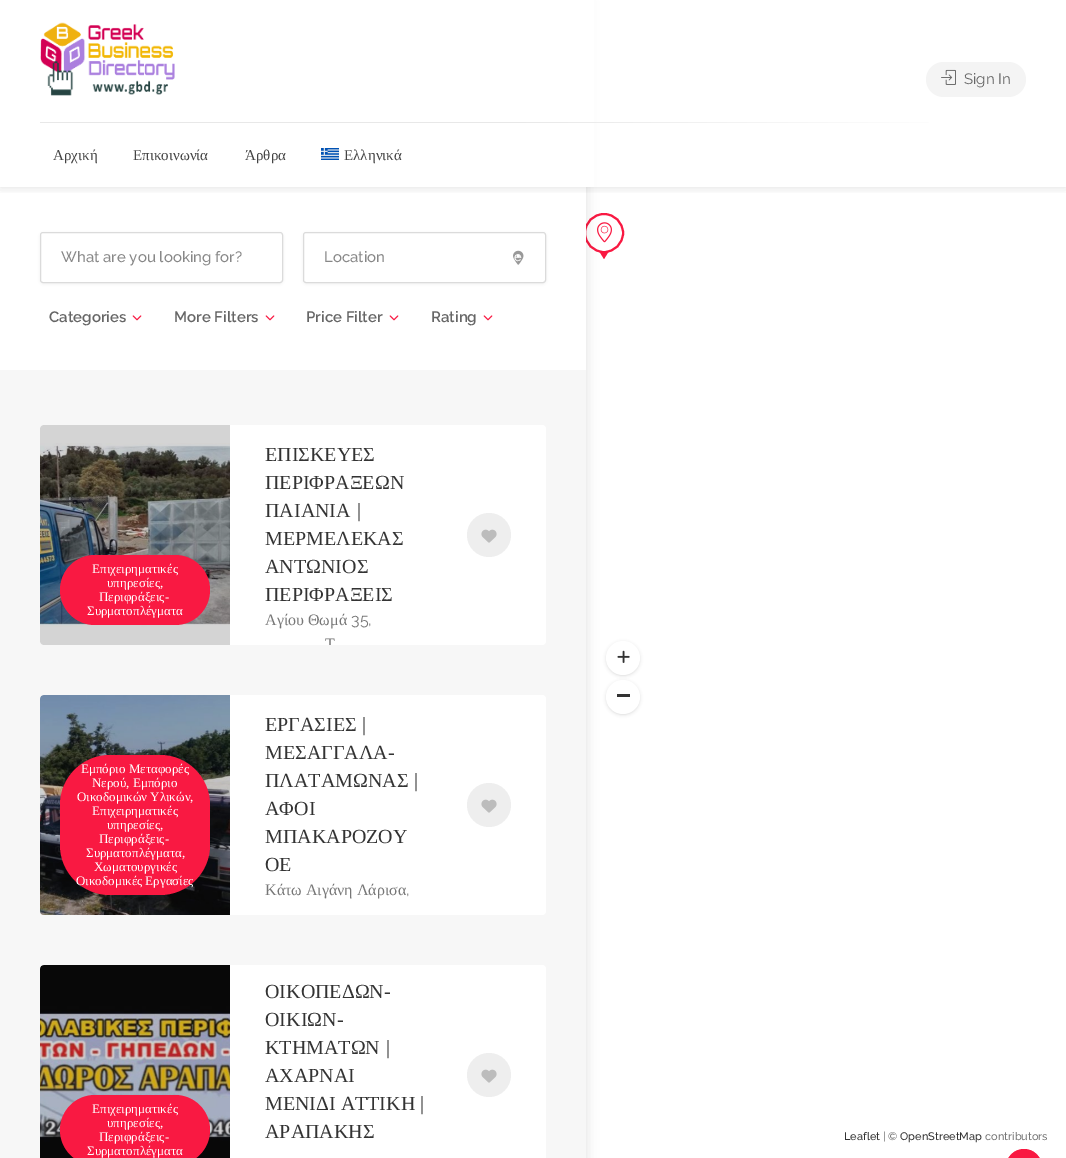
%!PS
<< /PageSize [1066 1158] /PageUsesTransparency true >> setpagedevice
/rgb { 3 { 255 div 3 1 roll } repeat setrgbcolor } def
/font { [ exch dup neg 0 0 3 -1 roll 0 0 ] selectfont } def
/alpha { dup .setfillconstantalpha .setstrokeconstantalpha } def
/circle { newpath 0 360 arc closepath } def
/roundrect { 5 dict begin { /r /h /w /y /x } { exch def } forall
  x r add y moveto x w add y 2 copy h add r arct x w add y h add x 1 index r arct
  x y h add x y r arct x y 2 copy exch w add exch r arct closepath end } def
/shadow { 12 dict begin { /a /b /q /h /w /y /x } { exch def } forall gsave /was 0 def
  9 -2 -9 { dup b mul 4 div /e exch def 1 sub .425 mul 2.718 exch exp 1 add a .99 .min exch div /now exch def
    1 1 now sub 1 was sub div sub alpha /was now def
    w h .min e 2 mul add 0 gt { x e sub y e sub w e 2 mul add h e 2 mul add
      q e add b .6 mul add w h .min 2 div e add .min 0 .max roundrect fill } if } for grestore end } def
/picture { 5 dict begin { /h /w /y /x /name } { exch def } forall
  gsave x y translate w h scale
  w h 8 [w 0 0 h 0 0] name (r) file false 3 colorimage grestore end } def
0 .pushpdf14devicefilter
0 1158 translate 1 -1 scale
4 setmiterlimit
255 255 255 rgb
0 0 1066 1158 rectfill
249 25 66 rgb
599 251 moveto 609 251 lineto 604 259 lineto closepath fill
255 255 255 rgb
604 233 19 circle gsave fill grestore
249 25 66 rgb
2 setlinewidth
stroke
(img/10.rgb) 597 222 15 21 picture
0 0 0 rgb
0 0 586 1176 0 6 0.12 shadow
255 255 255 rgb
0 0 594 187 rectfill
0 187 586 183 rectfill
gsave
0 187 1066 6 rectclip
0 0 0 rgb
0 0 1066 187 0 6 0.12 shadow
grestore
244 244 244 rgb
926 62 100 35 17.5 roundrect fill
(img/1.rgb) 941 69 15 16 picture
(img/2.rgb) 40 22 135 74 picture
gsave 40 122 moveto 929 122 lineto 929 123 lineto 40 123 lineto closepath clip newpath
<< /ShadingType 2 /ColorSpace /DeviceRGB /Coords [40 123 980 122] /Extend [true true] /Function << /FunctionType 3 /Domain [0 1] /Functions [<< /FunctionType 2 /Domain [0 1] /C0 [0.91 0.91 0.91] /C1 [0.91 0.91 0.91] /N 1 >> << /FunctionType 2 /Domain [0 1] /C0 [0.91 0.91 0.91] /C1 [1 1 1] /N 1 >>] /Bounds [0.5] /Encode [0 1 0 1] >> >> shfill grestore
(img/3.rgb) 321 148 18 12 picture
247 247 247 rgb
0 370 586 788 rectfill
0 0 0 rgb
40 233 243 51 3 1.5 0.06 shadow
255 255 255 rgb
40.5 232.5 242 50 2.5 roundrect gsave fill grestore
219 219 219 rgb
1 setlinewidth
stroke
0 0 0 rgb
303 233 243 51 3 1.5 0.06 shadow
255 255 255 rgb
303.5 232.5 242 50 2.5 roundrect gsave fill grestore
219 219 219 rgb
stroke
(img/4.rgb) 513 250 11 15 picture
(img/5.rgb) 132 315 10 6 picture
(img/5.rgb) 265 315 10 6 picture
(img/5.rgb) 389 315 10 6 picture
(img/5.rgb) 483 315 10 6 picture
255 255 255 rgb
40 425 506 220 4 roundrect fill
(img/6.rgb) 40 443 190 184 picture
0.2 alpha
39 39 41 rgb
44 425 moveto 230 425 lineto 230 645 lineto 44 645 lineto 42 645 40 643 40 641 curveto 40 429 lineto 40 427 42 425 44 425 curveto closepath fill
1 alpha
249 25 66 rgb
60 555 150 70 35 roundrect fill
238 238 238 rgb
489 535 22 circle fill
(img/7.rgb) 481 529 16 14 picture
255 255 255 rgb
40 695 506 220 4 roundrect fill
(img/8.rgb) 40 695 190 220 picture
0.2 alpha
39 39 41 rgb
44 695 moveto 230 695 lineto 230 915 lineto 44 915 lineto 42 915 40 913 40 911 curveto 40 699 lineto 40 697 42 695 44 695 curveto closepath fill
1 alpha
249 25 66 rgb
60 755 150 140 50 roundrect fill
238 238 238 rgb
489 805 22 circle fill
(img/7.rgb) 481 799 16 14 picture
255 255 255 rgb
40 965 506 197 4 roundrect fill
(img/9.rgb) 40 965 190 193 picture
0.2 alpha
39 39 41 rgb
44 965 moveto 230 965 lineto 230 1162 lineto 44 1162 lineto 42 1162 40 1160 40 1158 curveto 40 969 lineto 40 967 42 965 44 965 curveto closepath fill
1 alpha
249 25 66 rgb
60 1095 150 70 35 roundrect fill
238 238 238 rgb
489 1075 22 circle fill
(img/7.rgb) 481 1069 16 14 picture
249 25 66 rgb
1024 1149 moveto 1034 1149 1042 1157 1042 1167 curveto 1042 1158 lineto 1006 1158 lineto 1006 1167 lineto 1006 1157 1014 1149 1024 1149 curveto closepath fill
0.2 alpha
7 setlinewidth
1009.5 1152.5 29 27 14.5 roundrect stroke
1 alpha
0 0 0 rgb
607 643 32 32 16 2 0.2 shadow
255 255 255 rgb
623 658 17 circle fill
(img/11.rgb) 617 650 13 13 picture
0 0 0 rgb
607 682 32 32 16 2 0.2 shadow
255 255 255 rgb
623 697 17 circle fill
51 51 51 rgb
617 694 13 3 rectfill
/Raleway-Thin 15 font
102 102 102 rgb
964 84 moveto (Sign In) show
/LiberationSerif-Regular 15 font
68 68 68 rgb
[
  [(Αρχική) 53 160]
  [(Επικοινωνία) 133 160]
  [(Άρθρα) 245 160]
  [(Ελληνικά) 344 160]
] { aload pop moveto show } forall
/Raleway-Medium 15 font
136 136 136 rgb
61 262 moveto (What are you looking for?) show
324 262 moveto (Location) show
/Raleway-Medium 13 font
247 247 247 rgb
514 261 moveto (e) show
/Raleway-SemiBold 15 font
102 102 102 rgb
[
  [(Categories) 49 322]
  [(More Filters) 174 322]
  [(Price Filter) 306 322]
  [(Rating) 431 322]
] { aload pop moveto show } forall
/LiberationSerif-Regular 13 font
255 255 255 rgb
[
  [(Επιχειρηματικές) 92 573]
  [(υπηρεσίες,) 107 587]
  [(Περιφράξεις-) 99 601]
  [(Συρματοπλέγματα) 87 615]
] { aload pop moveto show } forall
/LiberationSerif-Regular 20 font
51 51 51 rgb
265 461 moveto (ΕΠΙΣΚΕΥΕΣ) show
265 489 moveto (ΠΕΡΙΦΡΑΞΕΩΝ) show
265 517 moveto 1 0 32 (ΠΑΙΑΝΙΑ |) widthshow
[
  [(ΜΕΡΜΕΛΕΚΑΣ) 265 545]
  [(ΑΝΤΩΝΙΟΣ) 265 573]
  [(ΠΕΡΙΦΡΑΞΕΙΣ) 265 601]
] { aload pop moveto show } forall
/LiberationSerif-Regular 16 font
119 119 119 rgb
265 625 moveto (Αγίου Θωμά) show
/Raleway-Thin 16 font
351 625 moveto (35,) show
gsave
44 425 moveto 542 425 lineto 544 425 546 427 546 429 curveto 546 645 lineto 40 645 lineto 40 429 lineto 40 427 42 425 44 425 curveto closepath clip newpath
/LiberationSerif-Regular 16 font
325 649 moveto (Τ) show
grestore
/LiberationSerif-Regular 13 font
255 255 255 rgb
[
  [(Εμπόριο Μεταφορές) 81 773]
  [(Νερού, Εμπόριο) 92 787]
  [(Οικοδομικών Υλικών,) 77 801]
  [(Επιχειρηματικές) 92 815]
  [(υπηρεσίες,) 107 829]
  [(Περιφράξεις-) 99 843]
  [(Συρματοπλέγματα,) 86 857]
  [(Χωματουργικές) 94 871]
  [(Οικοδομικές Εργασίες) 76 885]
] { aload pop moveto show } forall
/LiberationSerif-Regular 20 font
51 51 51 rgb
265 731 moveto 1 0 32 (ΕΡΓΑΣΙΕΣ |) widthshow
265 759 moveto (ΜΕΣΑΓΓΑΛΑ-) show
265 787 moveto 1 0 32 (ΠΛΑΤΑΜΩΝΑΣ |) widthshow
[
  [(ΑΦΟΙ) 265 815]
  [(ΜΠΑΚΑΡΟΖΟΥ) 265 843]
  [(ΟΕ) 265 871]
] { aload pop moveto show } forall
/LiberationSerif-Regular 16 font
119 119 119 rgb
265 895 moveto (Κάτω Αιγάνη Λάρισα) show
/Raleway-Thin 16 font
406 895 moveto (,) show
/LiberationSerif-Regular 13 font
255 255 255 rgb
[
  [(Επιχειρηματικές) 92 1113]
  [(υπηρεσίες,) 107 1127]
  [(Περιφράξεις-) 99 1141]
  [(Συρματοπλέγματα) 87 1155]
] { aload pop moveto show } forall
/LiberationSerif-Regular 20 font
51 51 51 rgb
265 998 moveto (ΟΙΚΟΠΕΔΩΝ-) show
265 1026 moveto (ΟΙΚΙΩΝ-) show
265 1054 moveto 1 0 32 (ΚΤΗΜΑΤΩΝ |) widthshow
[
  [(ΑΧΑΡΝΑΙ) 265 1082]
  [(ΜΕΝΙΔΙ ΑΤΤΙΚΗ |) 265 1110]
  [(ΑΡΑΠΑΚΗΣ) 265 1138]
] { aload pop moveto show } forall
/Raleway-Medium 11 font
844 1140 moveto (Leaflet) show
119 119 119 rgb
883 1140 moveto (| ©) show
51 51 51 rgb
900 1140 moveto (OpenStreetMap) show
119 119 119 rgb
985 1140 moveto (contributors) show
.poppdf14devicefilter showpage
